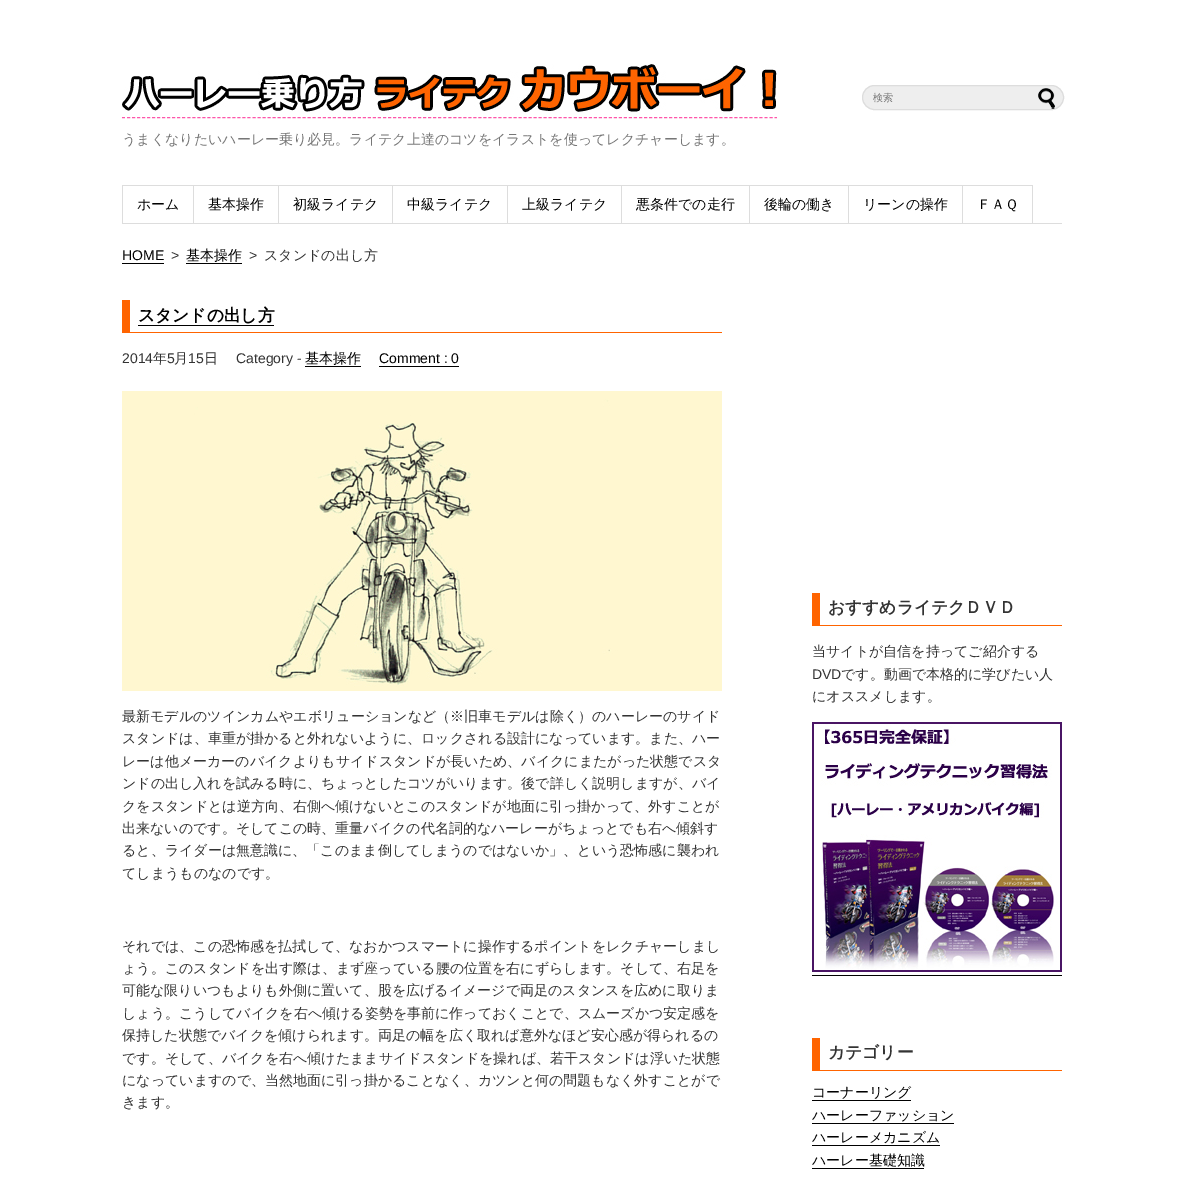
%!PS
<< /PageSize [1183 1181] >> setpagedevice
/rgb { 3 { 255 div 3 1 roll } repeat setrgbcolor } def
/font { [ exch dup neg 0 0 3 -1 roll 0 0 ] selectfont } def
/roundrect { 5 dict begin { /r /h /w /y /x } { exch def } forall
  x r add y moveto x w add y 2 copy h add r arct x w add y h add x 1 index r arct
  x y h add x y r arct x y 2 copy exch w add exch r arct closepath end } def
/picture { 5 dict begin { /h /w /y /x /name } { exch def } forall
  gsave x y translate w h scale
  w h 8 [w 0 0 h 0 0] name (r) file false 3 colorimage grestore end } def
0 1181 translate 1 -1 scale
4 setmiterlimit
255 255 255 rgb
0 0 1183 1181 rectfill
221 221 221 rgb
122 223 940 1 rectfill
238 238 238 rgb
862.5 85.5 201 24 12 roundrect gsave fill grestore
221 221 221 rgb
stroke
(img/1.rgb) 1038 88 17 21 picture
254 86 170 rgb
[3 2.02] 0 setdash
122 117.5 moveto 777 117.5 lineto stroke
(img/2.rgb) 122 63 655 50 picture
[
  [122 185 1 39 221 221 221]
  [123 185 910 1 221 221 221]
  [193 185 1 39 221 221 221]
  [278 185 1 39 221 221 221]
  [392 185 1 39 221 221 221]
  [507 185 1 39 221 221 221]
  [621 185 1 39 221 221 221]
  [749 185 1 39 221 221 221]
  [848 185 1 39 221 221 221]
  [962 185 1 39 221 221 221]
  [1032 185 1 39 221 221 221]
  [122 263 42 1 0 0 0]
  [186 263 56 1 0 0 0]
  [122 332 600 1 255 100 0]
  [122 300 8 33 255 100 0]
  [138 325 136 1 0 0 0]
  [305 366 56 1 0 0 0]
  [379 366 80 1 0 0 0]
] { aload pop rgb rectfill } forall
(img/3.rgb) 122 391 600 300 picture
255 100 0 rgb
812 625 250 1 rectfill
812 593 8 33 rectfill
(img/4.rgb) 812 722 250 250 picture
[
  [812 975 250 1 0 0 0]
  [812 1070 250 1 255 100 0]
  [812 1038 8 33 255 100 0]
  [812 1100 99 1 0 0 0]
  [812 1123 142 1 0 0 0]
  [812 1145 128 1 0 0 0]
  [812 1168 112 1 0 0 0]
] { aload pop rgb rectfill } forall
/WenQuanYiZenHei-Medium 10 font
119 119 119 rgb
873 101 moveto (検索) show
/WenQuanYiZenHei-Medium 14 font
122 144 moveto (うまくなりたいハーレー乗り必見。ライテク上達のコツをイラストを使ってレクチャーします。) show
0 0 0 rgb
[
  [(ホーム) 137 209]
  [(基本操作) 208 209]
  [(初級ライテク) 293 209]
  [(中級ライテク) 407 209]
  [(上級ライテク) 522 209]
  [(悪条件での走行) 636 209]
  [(後輪の働き) 764 209]
  [(リーンの操作) 863 209]
  [(ＦＡＱ) 977 209]
] { aload pop moveto show } forall
/LiberationSans-Regular 14 font
122 260 moveto (HOME) show
51 51 51 rgb
171 260 moveto (>) show
/WenQuanYiZenHei-Medium 14 font
0 0 0 rgb
186 260 moveto (基本操作) show
/LiberationSans-Regular 14 font
51 51 51 rgb
249 260 moveto (>) show
/WenQuanYiZenHei-Medium 14 font
264 260 moveto (スタンドの出し方) show
/WenQuanYiZenHei-Bold 16.75 font
0 0 0 rgb
138 321 moveto (スタンドの出し方) show
/LiberationSans-Regular 14 font
51 51 51 rgb
122 363 moveto (2014) show
/WenQuanYiZenHei-Medium 14 font
153 363 moveto (年) show
/LiberationSans-Regular 14 font
167 363 moveto (5) show
/WenQuanYiZenHei-Medium 14 font
174 363 moveto (月) show
/LiberationSans-Regular 14 font
188 363 moveto (15) show
/WenQuanYiZenHei-Medium 14 font
204 363 moveto (日) show
/LiberationSans-Regular 14 font
236 363 moveto (Category -) show
/WenQuanYiZenHei-Medium 14 font
0 0 0 rgb
305 363 moveto (基本操作) show
/LiberationSans-Regular 14 font
379 363 moveto (Comment : 0) show
/WenQuanYiZenHei-Medium 14 font
51 51 51 rgb
[
  [(最新モデルのツインカムやエボリューションなど（※旧車モデルは除く）のハーレーのサイド) 122 721]
  [(スタンドは、車重が掛かると外れないように、ロックされる設計になっています。また、ハー) 122 743]
  [(レーは他メーカーのバイクよりもサイドスタンドが長いため、バイクにまたがった状態でスタ) 122 766]
  [(ンドの出し入れを試みる時に、ちょっとしたコツがいります。後で詳しく説明しますが、バイ) 122 788]
  [(クをスタンドとは逆方向、右側へ傾けないとこのスタンドが地面に引っ掛かって、外すことが) 122 811]
  [(出来ないのです。そしてこの時、重量バイクの代名詞的なハーレーがちょっとでも右へ傾斜す) 122 833]
  [(ると、ライダーは無意識に、「このまま倒してしまうのではないか」、という恐怖感に襲われ) 122 855]
  [(てしまうものなのです。) 122 878]
  [(それでは、この恐怖感を払拭して、なおかつスマートに操作するポイントをレクチャーしまし) 122 951]
  [(ょう。このスタンドを出す際は、まず座っている腰の位置を右にずらします。そして、右足を) 122 973]
  [(可能な限りいつもよりも外側に置いて、股を広げるイメージで両足のスタンスを広めに取りま) 122 995]
  [(しょう。こうしてバイクを右へ傾ける姿勢を事前に作っておくことで、スムーズかつ安定感を) 122 1018]
  [(保持した状態でバイクを傾けられます。両足の幅を広く取れば意外なほど安心感が得られるの) 122 1040]
  [(です。そして、バイクを右へ傾けたままサイドスタンドを操れば、若干スタンドは浮いた状態) 122 1063]
  [(になっていますので、当然地面に引っ掛かることなく、カツンと何の問題もなく外すことがで) 122 1085]
  [(きます。) 122 1107]
] { aload pop moveto show } forall
/WenQuanYiZenHei-Bold 16.75 font
828 613 moveto (おすすめライテクＤＶＤ) show
/WenQuanYiZenHei-Medium 14 font
812 656 moveto (当サイトが自信を持ってご紹介する) show
/LiberationSans-Regular 14 font
812 679 moveto (DVD) show
/WenQuanYiZenHei-Medium 14 font
841 679 moveto (です。動画で本格的に学びたい人) show
812 701 moveto (にオススメします。) show
/WenQuanYiZenHei-Bold 16.75 font
828 1058 moveto (カテゴリー) show
/WenQuanYiZenHei-Medium 14 font
0 0 0 rgb
[
  [(コーナーリング) 812 1097]
  [(ハーレーファッション) 812 1120]
  [(ハーレーメカニズム) 812 1142]
  [(ハーレー基礎知識) 812 1165]
] { aload pop moveto show } forall
showpage
